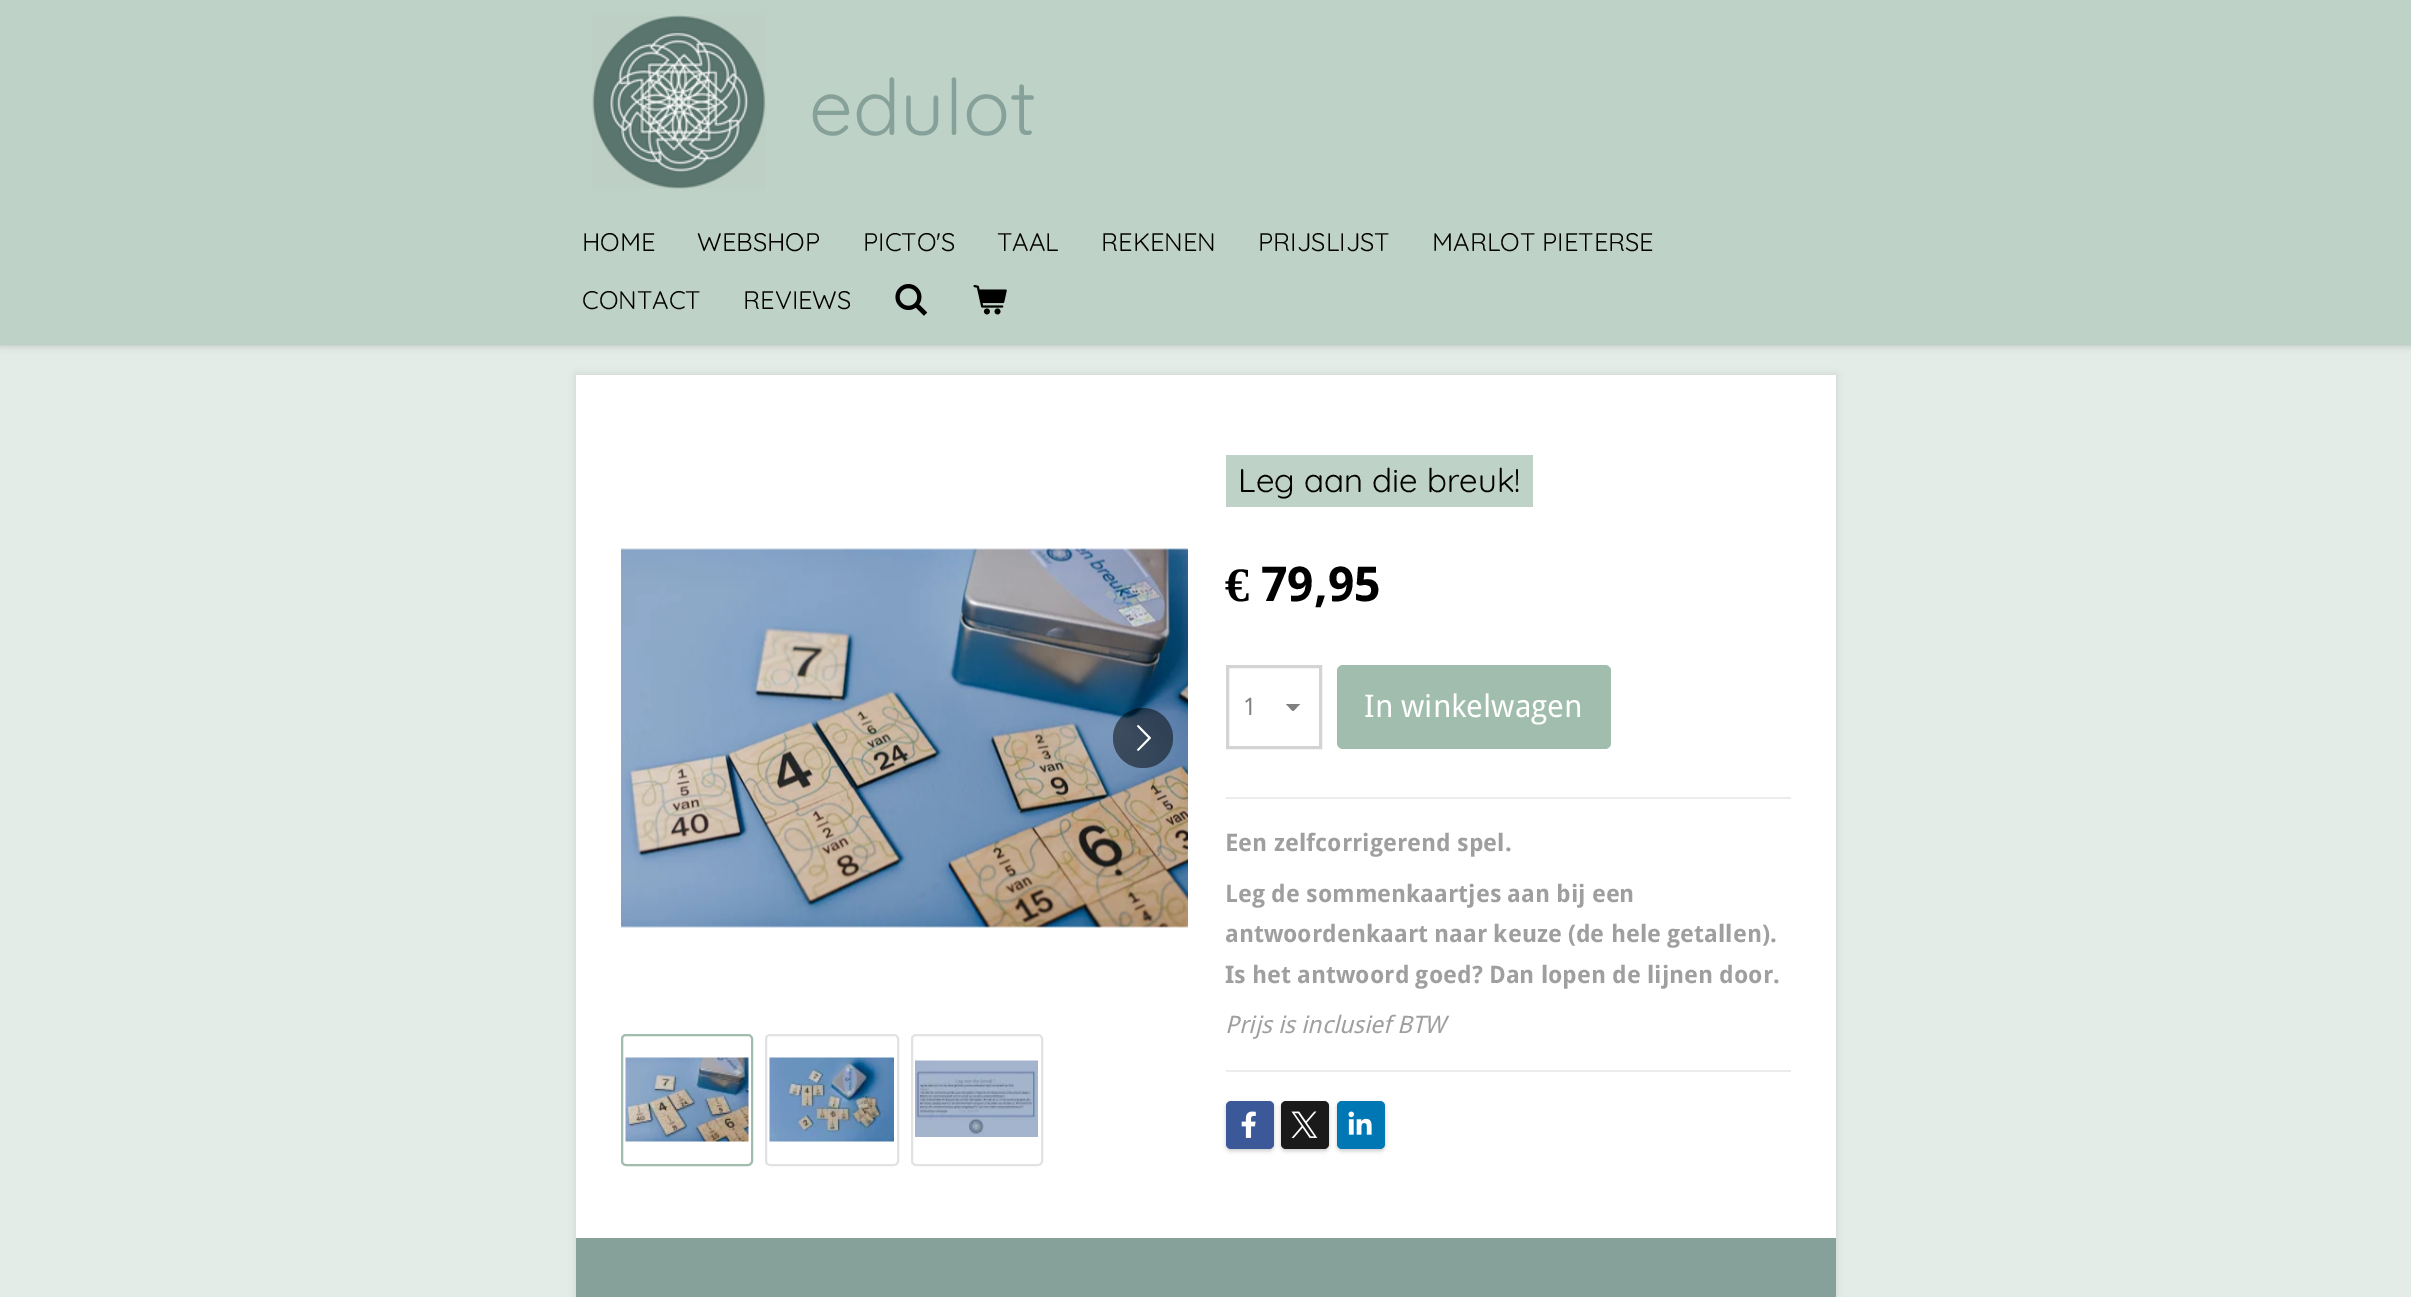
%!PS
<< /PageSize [2411 1297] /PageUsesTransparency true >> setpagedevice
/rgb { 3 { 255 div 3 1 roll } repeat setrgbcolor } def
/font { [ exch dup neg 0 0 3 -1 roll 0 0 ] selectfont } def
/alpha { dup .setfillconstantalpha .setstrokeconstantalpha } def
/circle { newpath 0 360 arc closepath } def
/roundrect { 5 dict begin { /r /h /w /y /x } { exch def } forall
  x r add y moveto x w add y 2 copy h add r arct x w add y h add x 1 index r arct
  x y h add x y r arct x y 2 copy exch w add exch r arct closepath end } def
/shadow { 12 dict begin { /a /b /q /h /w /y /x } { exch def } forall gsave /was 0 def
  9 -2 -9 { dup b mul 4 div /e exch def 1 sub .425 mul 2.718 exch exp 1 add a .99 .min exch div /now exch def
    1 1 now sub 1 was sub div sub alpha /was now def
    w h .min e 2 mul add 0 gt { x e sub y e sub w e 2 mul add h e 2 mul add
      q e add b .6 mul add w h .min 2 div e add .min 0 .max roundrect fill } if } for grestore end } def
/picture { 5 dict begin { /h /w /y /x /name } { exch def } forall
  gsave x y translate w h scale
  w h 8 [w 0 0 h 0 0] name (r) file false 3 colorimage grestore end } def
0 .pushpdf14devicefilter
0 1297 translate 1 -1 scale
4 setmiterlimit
228 236 231 rgb
0 0 2411 1297 rectfill
0 0 0 rgb
0 0 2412 345 0 4 0.2 shadow
191 210 199 rgb
0 0 2411 345 rectfill
(img/1.rgb) 592 15 174 174 picture
(img/2.rgb) 895 284 33 32 picture
(img/3.rgb) 973 285 34 30 picture
0 0 0 rgb
576 375 1260 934 0 4 0.1 shadow
255 255 255 rgb
576 375 1260 863 rectfill
191 210 199 rgb
1226 455 307 52 rectfill
(img/4.rgb) 621 548 567 380 picture
0.5 alpha
0 0 0 rgb
1143 738 30 circle fill
1 alpha
(img/5.rgb) 1137 725 14 26 picture
161 189 173 rgb
2 setlinewidth
622 1035 130 130 4 roundrect stroke
(img/6.rgb) 625 1057 124 85 picture
226 226 226 rgb
766 1035 132 130 4 roundrect stroke
(img/7.rgb) 769 1057 125 85 picture
912 1035 130 130 4 roundrect stroke
(img/8.rgb) 915 1060 123 77 picture
gsave
1286 704 15 7 rectclip
128 128 128 rgb
1293 711.5 moveto 1285.5 703.5 lineto 1300.5 703.5 lineto closepath fill
grestore
211 211 211 rgb
3 setlinewidth
1227.5 666.5 93 81 rectstroke
161 189 173 rgb
1337 665 274 84 6 roundrect fill
236 236 236 rgb
1226 797 565 2 rectfill
1226 1070 565 2 rectfill
0 0 0 rgb
1226 1103 48 48 5 2 0.2 shadow
59 89 152 rgb
1226 1101 48 48 5 roundrect fill
(img/9.rgb) 1241 1111 15 27 picture
0 0 0 rgb
1281 1103 48 48 5 2 0.2 shadow
26 26 26 rgb
1281 1101 48 48 5 roundrect fill
(img/10.rgb) 1291 1111 27 27 picture
0 0 0 rgb
1337 1103 48 48 5 2 0.2 shadow
0 119 181 rgb
1337 1101 48 48 5 roundrect fill
(img/11.rgb) 1348 1111 24 24 picture
134 161 153 rgb
576 1238 1260 59 rectfill
/Quicksand-Regular 78 font
809 135 moveto (edulot) show
/Quicksand-Regular 25.5 font
0 0 0 rgb
[
  [(HOME) 582 251]
  [(WEBSHOP) 697 251]
  [(PICTO'S) 863 251]
  [(TAAL) 997 251]
  [(REKENEN) 1101 251]
  [(PRIJSLIJST) 1258 251]
  [(MARLOT PIETERSE) 1432 251]
  [(CONTACT) 582 309]
  [(REVIEWS) 743 309]
] { aload pop moveto show } forall
/Quicksand-Regular 33 font
1238 492 moveto (Leg aan die breuk!) show
/LiberationSerif-Bold 48 font
1225 601 moveto (€) show
/DroidSans-Bold 48 font
1261 601 moveto (79,95) show
/DroidSans-Regular 24 font
128 128 128 rgb
1243 715 moveto (1) show
/DroidSans-Regular 31.25 font
255 255 255 rgb
1364 717 moveto (In winkelwagen) show
/DroidSans-Bold 24 font
159 159 159 rgb
[
  [(Een zelfcorrigerend spel.) 1225 851]
  [(Leg de sommenkaartjes aan bij een) 1225 902]
  [(antwoordenkaart naar keuze \(de hele getallen\).) 1225 942]
  [(Is het antwoord goed? Dan lopen de lijnen door.) 1225 983]
] { aload pop moveto show } forall
/DroidSans-Italic 24 font
1225 1033 moveto (Prijs is inclusief BTW) show
.poppdf14devicefilter showpage
